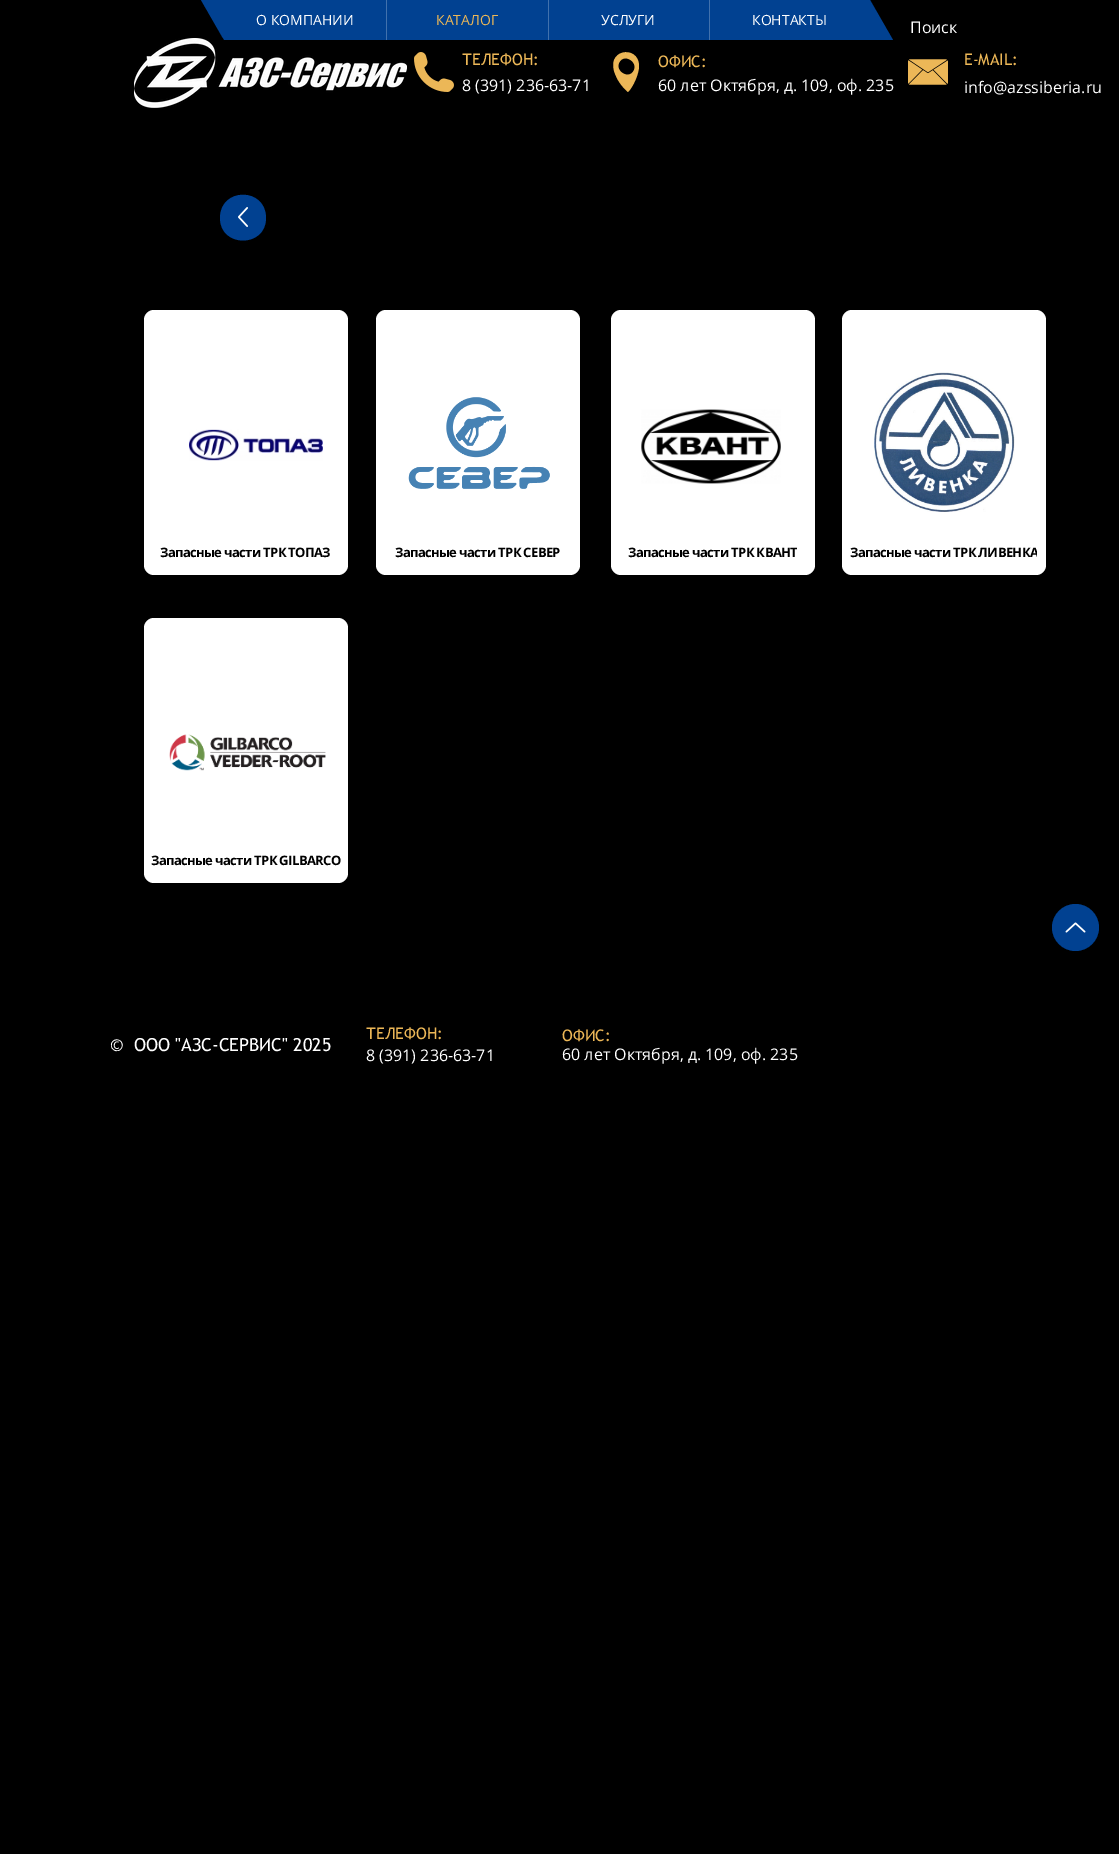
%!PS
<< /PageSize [1119 1854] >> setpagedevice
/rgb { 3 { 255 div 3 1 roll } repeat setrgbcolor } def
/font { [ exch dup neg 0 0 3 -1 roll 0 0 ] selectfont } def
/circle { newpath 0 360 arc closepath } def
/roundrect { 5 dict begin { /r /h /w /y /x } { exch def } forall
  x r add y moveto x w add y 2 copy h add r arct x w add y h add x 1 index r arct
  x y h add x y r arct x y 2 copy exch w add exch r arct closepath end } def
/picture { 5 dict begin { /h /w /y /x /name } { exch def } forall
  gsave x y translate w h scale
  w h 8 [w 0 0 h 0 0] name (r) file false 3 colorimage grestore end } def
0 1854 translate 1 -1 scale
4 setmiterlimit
0 0 0 rgb
0 0 1119 1854 rectfill
1 65 145 rgb
224 40 moveto 201 0 lineto 246 0 lineto closepath fill
[
  [224 0 646 40 1 65 145]
  [386 0 1 40 65 113 173]
  [548 0 1 40 65 113 173]
  [709 0 1 40 65 113 173]
] { aload pop rgb rectfill } forall
1 65 145 rgb
870 0 moveto 893 40 lineto 848 40 lineto closepath fill
(img/1.rgb) 134 38 273 70 picture
(img/2.rgb) 414 52 40 40 picture
236 183 87 rgb
634 70 moveto 630 80 615 72 619 63 curveto 623 53 638 61 634 70 curveto 639 66 moveto 639 44 603 49 616 76 curveto 618 81 623 88 628 92 curveto 633 87 639 74 639 66 curveto fill
(img/3.rgb) 908 59 40 26 picture
1 65 145 rgb
220 218 moveto 220 187 266 187 266 218 curveto 266 248 220 248 220 218 curveto closepath fill
(img/4.rgb) 238 207 10 20 picture
255 255 255 rgb
144 310 204 265 10 roundrect fill
(img/5.rgb) 189 429 134 32 picture
376 310 204 265 10 roundrect fill
(img/6.rgb) 408 397 142 92 picture
611 310 204 265 10 roundrect fill
(img/7.rgb) 641 409 140 75 picture
842 310 204 265 10 roundrect fill
(img/8.rgb) 874 372 141 140 picture
144 618 204 265 10 roundrect fill
(img/9.rgb) 169 734 157 37 picture
1 65 145 rgb
1075.5 927.5 23.5 circle fill
(img/10.rgb) 1065 922 21 11 picture
/OpenSans-Regular 14 font
255 255 255 rgb
256 25 moveto (О КОМПАНИИ) show
236 183 87 rgb
436 25 moveto (КАТАЛОГ) show
255 255 255 rgb
601 25 moveto (УСЛУГИ) show
752 25 moveto (КОНТАКТЫ) show
/OpenSans-Regular 16 font
910 33 moveto (Поиск) show
/TrebuchetMS-Regular 16 font
236 183 87 rgb
[
  [(ТЕЛЕФОН:) 462 65]
  [(ОФИС:) 658 67]
  [(E-MAIL:) 964 65]
] { aload pop moveto show } forall
/OpenSans-Regular 16 font
255 255 255 rgb
[
  [(8 \(391\) 236-63-71) 462 91]
  [(60 лет Октября, д. 109, оф. 235) 658 91]
  [(info@azssiberia.ru) 964 93]
] { aload pop moveto show } forall
/OpenSans-Bold 13 font
0 0 0 rgb
160 557 moveto -0.65 0 (Запасные части ТРК ТОПАЗ) ashow
395 557 moveto -0.65 0 (Запасные части ТРК СЕВЕР) ashow
gsave
628 533 169 39 rectclip
628 557 moveto -0.65 0 (Запасные части ТРК КВАНТ) ashow
grestore
gsave
850 533 187 39 rectclip
850 557 moveto -0.65 0 (Запасные части ТРК ЛИВЕНКА) ashow
grestore
151 865 moveto -0.65 0 (Запасные части ТРК GILBARCO) ashow
/TrebuchetMS-Regular 16 font
236 183 87 rgb
366 1039 moveto (ТЕЛЕФОН:) show
562 1041 moveto (ОФИС:) show
/TrebuchetMS-Regular 18 font
255 255 255 rgb
110 1051 moveto (©  ООО "АЗС-СЕРВИС" 2025) show
/OpenSans-Regular 16 font
366 1061 moveto (8 \(391\) 236-63-71) show
562 1060 moveto (60 лет Октября, д. 109, оф. 235) show
showpage
